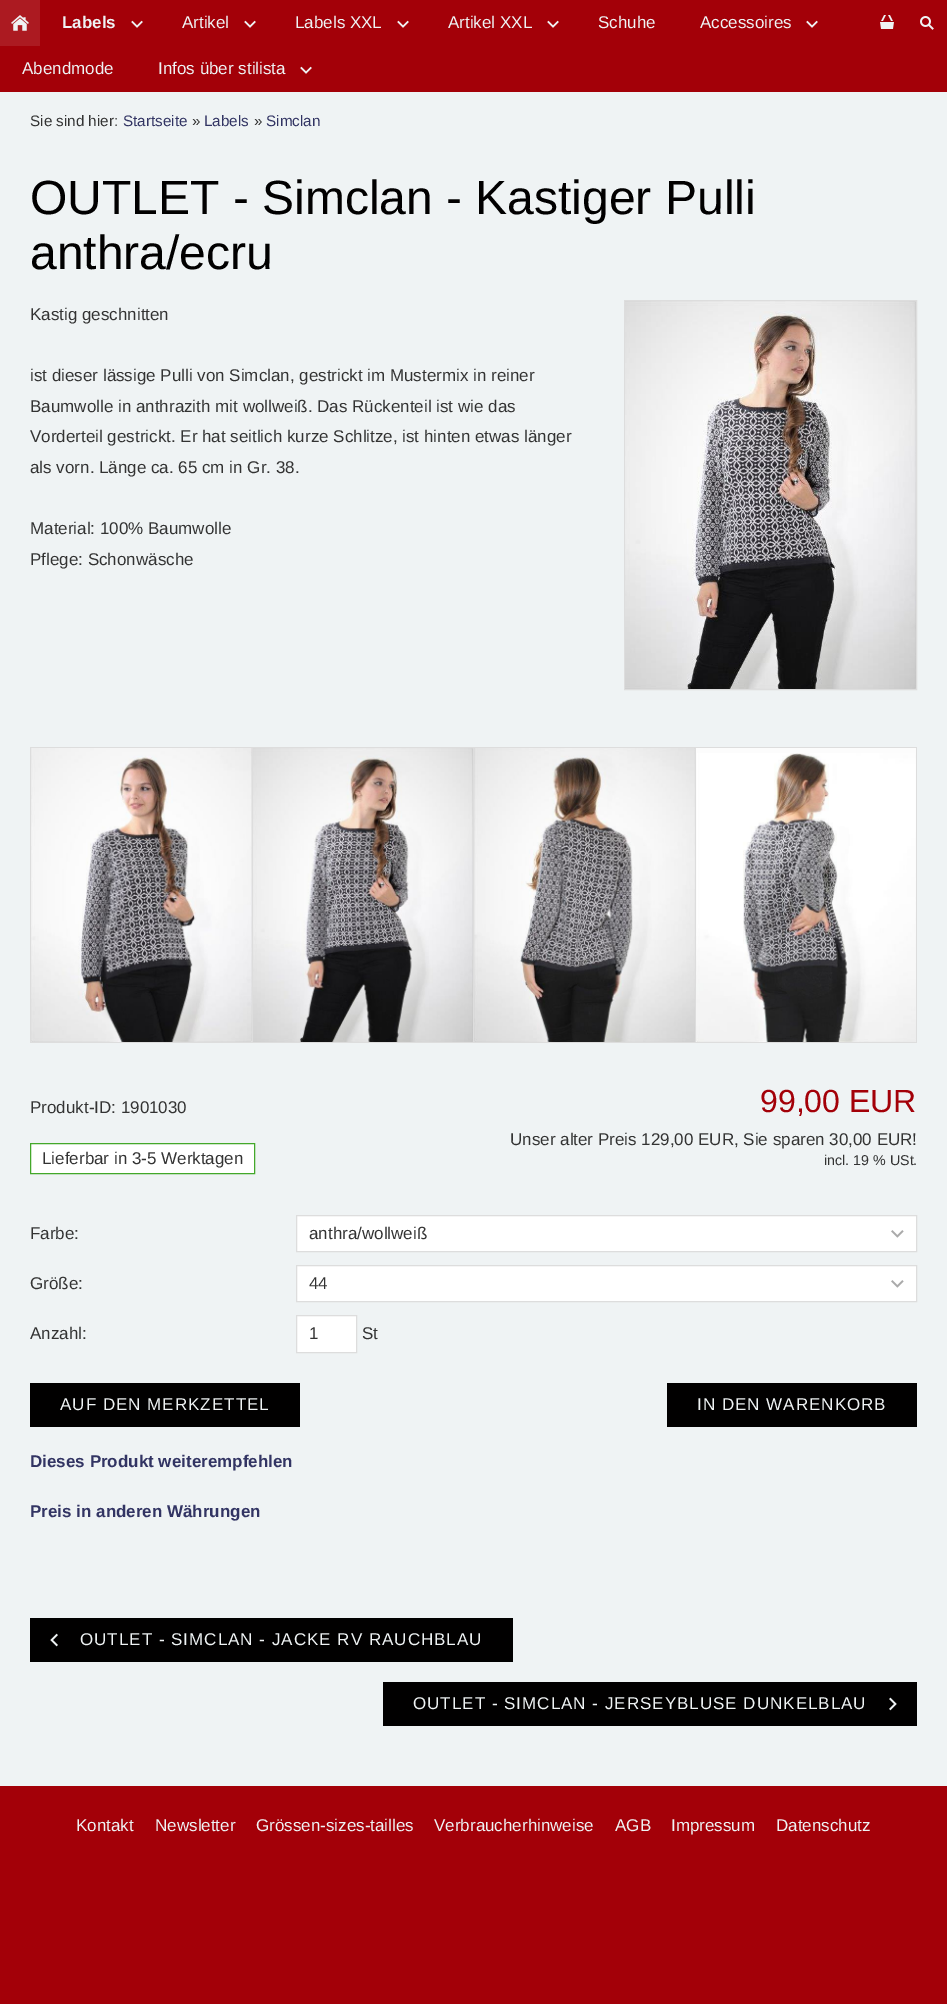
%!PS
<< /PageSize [947 2004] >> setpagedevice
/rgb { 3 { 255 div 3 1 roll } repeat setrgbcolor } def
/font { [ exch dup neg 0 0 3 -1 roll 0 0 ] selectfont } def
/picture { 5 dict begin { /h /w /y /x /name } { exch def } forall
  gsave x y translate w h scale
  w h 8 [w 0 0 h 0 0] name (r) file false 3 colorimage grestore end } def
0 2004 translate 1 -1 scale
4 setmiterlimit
163 0 8 rgb
0 0 947 2004 rectfill
172 26 33 rgb
0 0 40 46 rectfill
(img/1.rgb) 11 15 18 16 picture
(img/2.rgb) 131 20 12 8 picture
(img/2.rgb) 244 20 12 8 picture
(img/2.rgb) 397 20 12 8 picture
(img/2.rgb) 547 20 12 8 picture
(img/2.rgb) 806 20 12 8 picture
(img/3.rgb) 880 15 14 14 picture
(img/4.rgb) 920 16 14 14 picture
(img/2.rgb) 300 66 12 8 picture
239 243 244 rgb
0 92 947 1694 rectfill
221 221 221 rgb
624.5 300.5 292 389 rectstroke
(img/5.rgb) 625 301 291 388 picture
[
  [30 747 887 1 221 221 221]
  [916 747 1 296 221 221 221]
  [30 1042 887 1 221 221 221]
  [30 747 1 296 221 221 221]
  [696 748 220 5 252 252 252]
] { aload pop rgb rectfill } forall
(img/6.rgb) 31 748 221 294 picture
221 221 221 rgb
252 747 1 296 rectfill
(img/7.rgb) 253 748 220 294 picture
473 747 1 296 rectfill
(img/8.rgb) 474 748 221 294 picture
695 747 1 296 rectfill
(img/9.rgb) 696 753 220 289 picture
255 255 255 rgb
30.5 1143.5 moveto 254.5 1143.5 lineto 254.5 1173.5 lineto 30.5 1173.5 lineto closepath gsave fill grestore
67 168 42 rgb
stroke
255 255 255 rgb
297 1216 619 35 rectfill
(img/10.rgb) 891 1230 13 8 picture
221 221 221 rgb
296.5 1215.5 620 36 rectstroke
255 255 255 rgb
297 1266 619 35 rectfill
(img/10.rgb) 891 1280 13 8 picture
221 221 221 rgb
296.5 1265.5 620 36 rectstroke
255 255 255 rgb
296.5 1315.5 moveto 356.5 1315.5 lineto 356.5 1352.5 lineto 296.5 1352.5 lineto closepath gsave fill grestore
221 221 221 rgb
stroke
[
  [30 1383 270 44 1 0 0]
  [667 1383 250 44 1 0 0]
  [30 1618 483 44 1 0 0]
] { aload pop rgb rectfill } forall
(img/11.rgb) 50 1633 8 14 picture
383 1682 534 44 rectfill
(img/12.rgb) 889 1697 8 14 picture
/LiberationSans-Bold 17 font
239 243 244 rgb
62 28 moveto (Labels) show
/LiberationSans-Regular 17 font
[
  [(Artikel) 182 28]
  [(Labels XXL) 295 28]
  [(Artikel XXL) 448 28]
  [(Schuhe) 598 28]
  [(Accessoires) 700 28]
  [(Abendmode) 22 74]
  [(Infos über stilista) 158 74]
] { aload pop moveto show } forall
/LiberationSans-Regular 15.25 font
51 51 51 rgb
30 126 moveto (Sie sind hier:) show
50 52 99 rgb
123 126 moveto (Startseite) show
51 51 51 rgb
192 126 moveto (») show
50 52 99 rgb
204 126 moveto (Labels) show
51 51 51 rgb
254 126 moveto (») show
50 52 99 rgb
266 126 moveto (Simclan) show
/LiberationSans-Regular 48 font
1 0 0 rgb
30 214 moveto (OUTLET - Simclan - Kastiger Pulli) show
30 269 moveto (anthra/ecru) show
/LiberationSans-Regular 17 font
51 51 51 rgb
[
  [(Kastig geschnitten) 30 320]
  [(ist dieser lässige Pulli von Simclan, gestrickt im Mustermix in reiner) 30 381]
  [(Baumwolle in anthrazith mit wollweiß. Das Rückenteil ist wie das) 30 412]
  [(Vorderteil gestrickt. Er hat seitlich kurze Schlitze, ist hinten etwas länger) 30 442]
  [(als vorn. Länge ca. 65 cm in Gr. 38.) 30 473]
  [(Material: 100% Baumwolle) 30 534]
  [(Pflege: Schonwäsche) 30 565]
  [(Produkt-ID: 1901030) 30 1113]
  [(Lieferbar in 3-5 Werktagen) 42 1164]
] { aload pop moveto show } forall
/LiberationSans-Regular 32 font
163 0 8 rgb
760 1112 moveto (99,00 EUR) show
/LiberationSans-Regular 17 font
51 51 51 rgb
510 1145 moveto (Unser alter Preis 129,00 EUR, Sie sparen 30,00 EUR!) show
/LiberationSans-Regular 14.25 font
824 1165 moveto (incl. 19 % USt.) show
/LiberationSans-Regular 17 font
[
  [(Farbe:) 30 1239]
  [(anthra/wollweiß) 309 1239]
  [(Größe:) 30 1289]
  [(44) 309 1289]
  [(Anzahl:) 30 1339]
  [(1) 309 1339]
  [(St) 362 1339]
] { aload pop moveto show } forall
239 243 244 rgb
60 1410 moveto 1 0 (AUF DEN MERKZETTEL) ashow
697 1410 moveto 1 0 (IN DEN WARENKORB) ashow
/LiberationSans-Bold 17 font
50 52 99 rgb
30 1467 moveto (Dieses Produkt weiterempfehlen) show
30 1517 moveto (Preis in anderen Währungen) show
/LiberationSans-Regular 17 font
239 243 244 rgb
80 1645 moveto 1 0 (OUTLET - SIMCLAN - JACKE RV RAUCHBLAU) ashow
413 1709 moveto 1 0 (OUTLET - SIMCLAN - JERSEYBLUSE DUNKELBLAU) ashow
[
  [(Kontakt) 76 1831]
  [(Newsletter) 155 1831]
  [(Grössen-sizes-tailles) 256 1831]
  [(Verbraucherhinweise) 434 1831]
  [(AGB) 615 1831]
  [(Impressum) 671 1831]
  [(Datenschutz) 776 1831]
] { aload pop moveto show } forall
showpage
